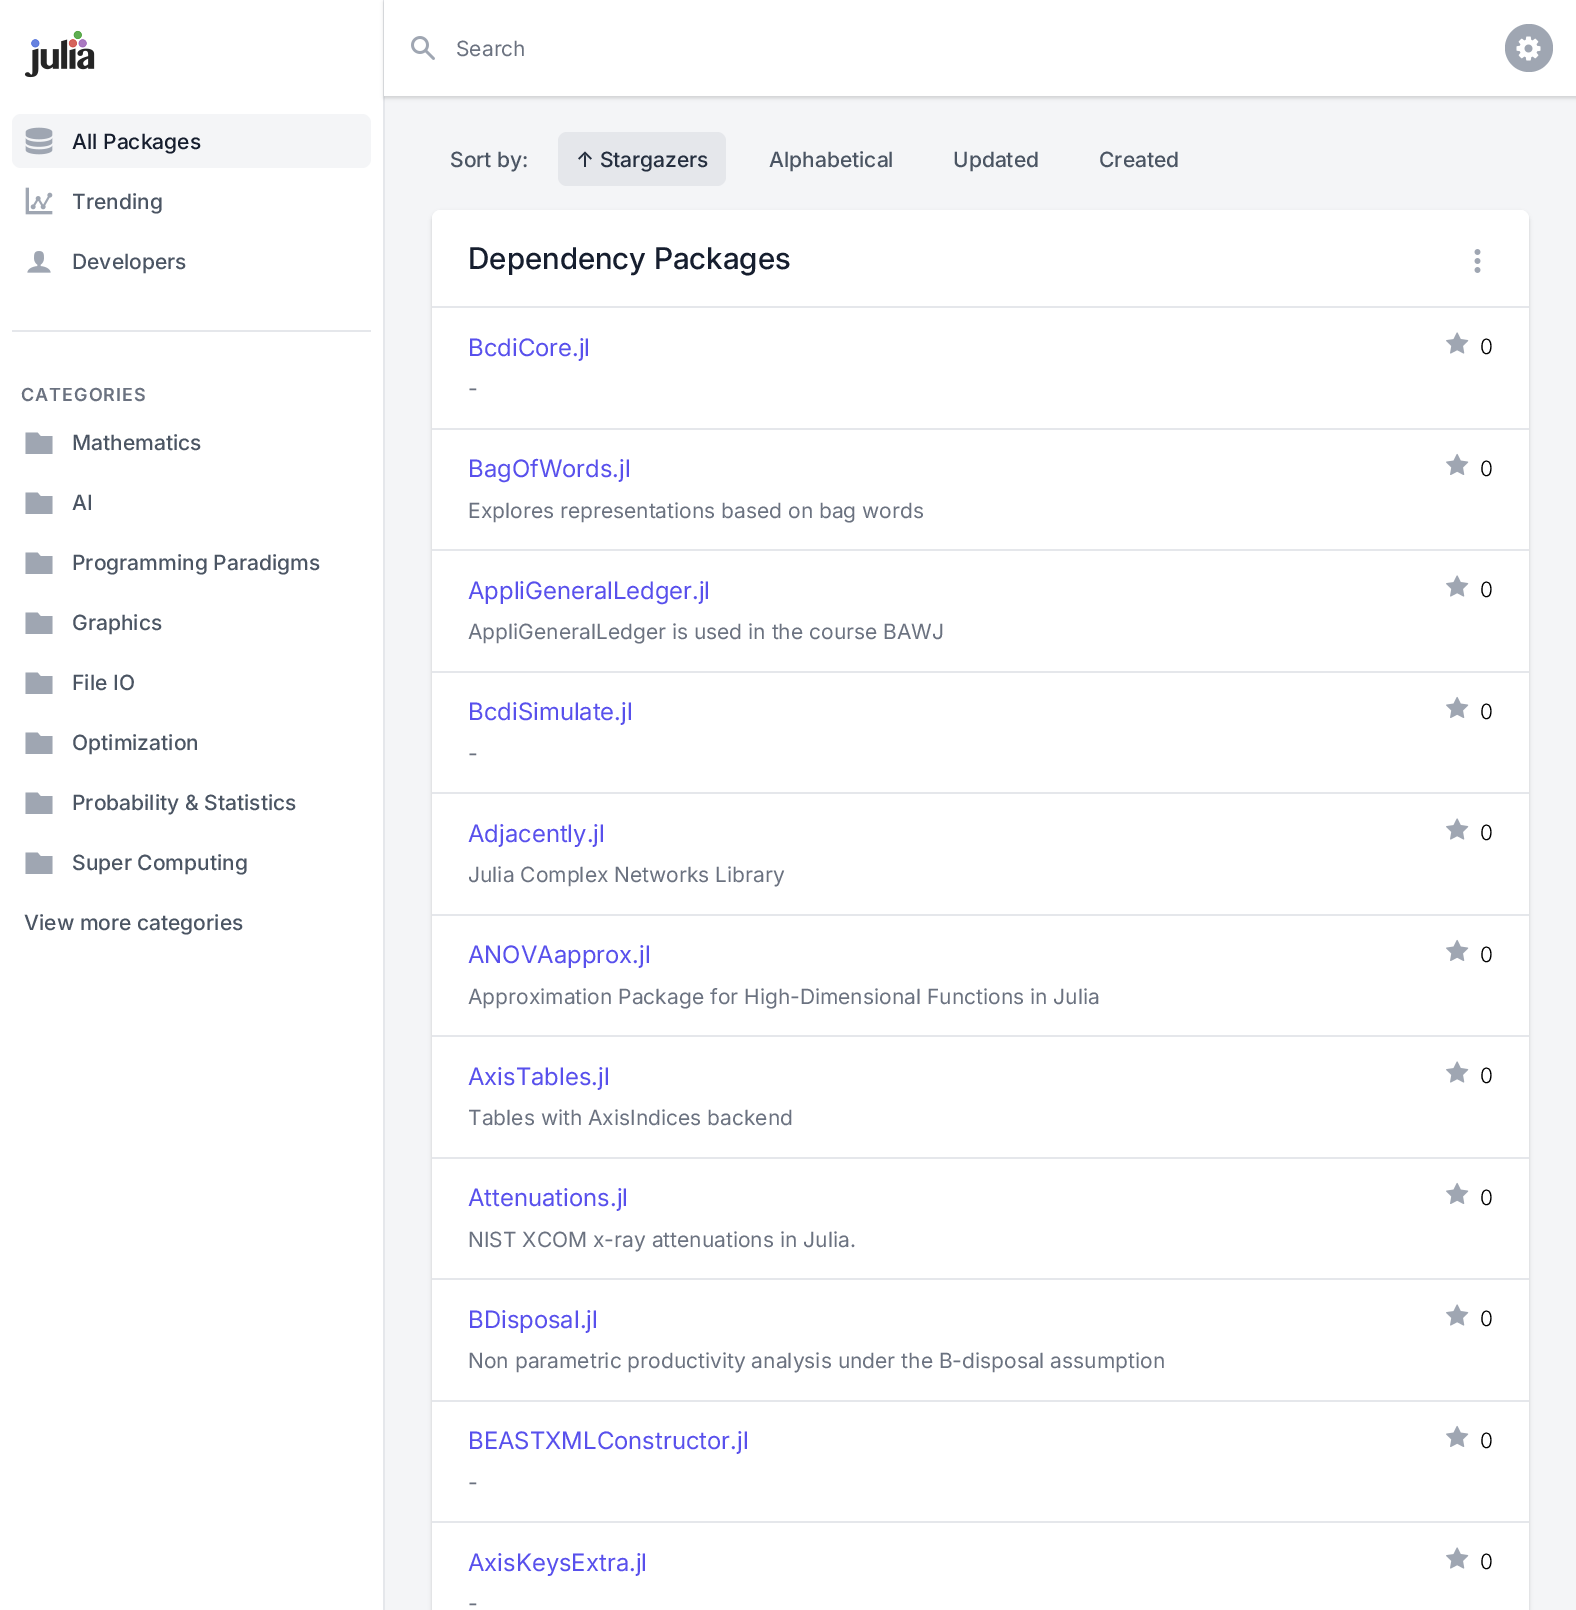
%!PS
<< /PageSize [1576 1610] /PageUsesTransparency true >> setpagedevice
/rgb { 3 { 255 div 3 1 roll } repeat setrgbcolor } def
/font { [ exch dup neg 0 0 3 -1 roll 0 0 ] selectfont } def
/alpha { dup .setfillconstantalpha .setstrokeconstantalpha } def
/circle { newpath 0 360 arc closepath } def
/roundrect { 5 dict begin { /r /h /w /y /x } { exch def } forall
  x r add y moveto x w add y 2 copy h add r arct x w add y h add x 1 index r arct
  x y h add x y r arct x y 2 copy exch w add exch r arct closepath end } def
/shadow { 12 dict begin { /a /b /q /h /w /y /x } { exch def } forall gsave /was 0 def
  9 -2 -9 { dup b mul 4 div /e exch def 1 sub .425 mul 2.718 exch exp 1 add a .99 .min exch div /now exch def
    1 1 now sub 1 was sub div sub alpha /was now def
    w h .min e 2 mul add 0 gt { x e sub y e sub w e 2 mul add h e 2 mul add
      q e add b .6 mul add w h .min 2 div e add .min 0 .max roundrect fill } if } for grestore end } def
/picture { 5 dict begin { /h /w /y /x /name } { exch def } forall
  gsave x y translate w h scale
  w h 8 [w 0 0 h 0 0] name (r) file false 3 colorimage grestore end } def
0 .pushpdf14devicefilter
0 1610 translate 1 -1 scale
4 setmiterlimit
244 245 247 rgb
0 0 1576 1610 rectfill
255 255 255 rgb
0 0 383 1610 rectfill
229 231 235 rgb
383 0 2 1610 rectfill
(img/1.rgb) 24 30 71 48 picture
244 245 247 rgb
12 114 359 54 9 roundrect fill
(img/2.rgb) 25 127 28 28 picture
(img/3.rgb) 25 187 28 28 picture
(img/4.rgb) 27 251 24 22 picture
229 231 235 rgb
12 330 359 2 rectfill
159 166 178 rgb
37.5 432.5 moveto 40.5 436 lineto 52.5 436 lineto 52.5 454 lineto 25.5 454 lineto 25.5 432.5 lineto closepath fill
37.5 492.5 moveto 40.5 496 lineto 52.5 496 lineto 52.5 514 lineto 25.5 514 lineto 25.5 492.5 lineto closepath fill
37.5 552.5 moveto 40.5 556 lineto 52.5 556 lineto 52.5 574 lineto 25.5 574 lineto 25.5 552.5 lineto closepath fill
37.5 612.5 moveto 40.5 616 lineto 52.5 616 lineto 52.5 634 lineto 25.5 634 lineto 25.5 612.5 lineto closepath fill
37.5 672.5 moveto 40.5 676 lineto 52.5 676 lineto 52.5 694 lineto 25.5 694 lineto 25.5 672.5 lineto closepath fill
37.5 732.5 moveto 40.5 736 lineto 52.5 736 lineto 52.5 754 lineto 25.5 754 lineto 25.5 732.5 lineto closepath fill
37.5 792.5 moveto 40.5 796 lineto 52.5 796 lineto 52.5 814 lineto 25.5 814 lineto 25.5 792.5 lineto closepath fill
37.5 852.5 moveto 40.5 856 lineto 52.5 856 lineto 52.5 874 lineto 25.5 874 lineto 25.5 852.5 lineto closepath fill
0 0 0 rgb
384 2 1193 96 0 1.5 0.06 shadow
384 2 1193 96 0 2 0.1 shadow
255 255 255 rgb
384 0 1192 96 rectfill
(img/5.rgb) 411 36 24 24 picture
159 166 178 rgb
1529 48 24 circle fill
(img/6.rgb) 1516 36 25 25 picture
229 231 235 rgb
558 132 168 54 9 roundrect fill
0 0 0 rgb
432 212 1097 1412 9 1.5 0.06 shadow
432 212 1097 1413 9 2 0.1 shadow
255 255 255 rgb
441 210 moveto 1520 210 lineto 1525 210 1529 214 1529 219 curveto 1529 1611 lineto 432 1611 lineto 432 219 lineto 432 214 436 210 441 210 curveto closepath fill
441 210 moveto 1520 210 lineto 1525 210 1529 214 1529 219 curveto 1529 306 lineto 432 306 lineto 432 219 lineto 432 214 436 210 441 210 curveto closepath fill
(img/7.rgb) 1474 249 7 24 picture
229 231 235 rgb
432 306 1097 2 rectfill
(img/8.rgb) 1446 332 23 22 picture
432 428 1097 2 rectfill
(img/9.rgb) 1446 453 23 22 picture
432 549 1097 2 rectfill
(img/8.rgb) 1446 575 23 22 picture
432 671 1097 2 rectfill
(img/9.rgb) 1446 696 23 22 picture
432 792 1097 2 rectfill
(img/8.rgb) 1446 818 23 22 picture
432 914 1097 2 rectfill
(img/9.rgb) 1446 939 23 22 picture
432 1035 1097 2 rectfill
(img/8.rgb) 1446 1061 23 22 picture
432 1157 1097 2 rectfill
(img/9.rgb) 1446 1182 23 22 picture
432 1278 1097 2 rectfill
(img/8.rgb) 1446 1304 23 22 picture
432 1400 1097 2 rectfill
(img/9.rgb) 1446 1425 23 22 picture
432 1521 1097 2 rectfill
(img/8.rgb) 1446 1547 23 22 picture
/Inter-Medium 21 font
22 30 46 rgb
72 149 moveto (All Packages) show
75 85 99 rgb
72 209 moveto (Trending) show
72 269 moveto (Developers) show
/Inter-SemiBold 18 font
107 114 128 rgb
21 401 moveto 1 0 (CATEGORIES) ashow
/Inter-Medium 21 font
75 85 99 rgb
[
  [(Mathematics) 72 450]
  [(AI) 72 510]
  [(Programming Paradigms) 72 570]
  [(Graphics) 72 630]
  [(File IO) 72 690]
  [(Optimization) 72 750]
  [(Probability & Statistics) 72 810]
  [(Super Computing) 72 870]
  [(View more categories) 24 930]
] { aload pop moveto show } forall
/Inter-Regular 21 font
107 114 128 rgb
456 56 moveto (Search) show
/Inter-Medium 21 font
75 85 99 rgb
450 167 moveto (Sort by:) show
37 47 63 rgb
576 167 moveto (↑ Stargazers) show
75 85 99 rgb
[
  [(Alphabetical) 769 167]
  [(Updated) 953 167]
  [(Created) 1099 167]
] { aload pop moveto show } forall
/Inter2-Medium 30 font
22 30 46 rgb
468 269 moveto (Dependency Packages) show
/Inter2-Regular 24 font
88 80 236 rgb
468 356 moveto (BcdiCore.jl) show
/Inter-Light 21 font
0 0 0 rgb
1480 354 moveto (0) show
/Inter-Regular 21 font
107 114 128 rgb
468 396 moveto (-) show
/Inter2-Regular 24 font
88 80 236 rgb
468 477 moveto (BagOfWords.jl) show
/Inter-Light 21 font
0 0 0 rgb
1480 476 moveto (0) show
/Inter-Regular 21 font
107 114 128 rgb
468 518 moveto (Explores representations based on bag words) show
/Inter2-Regular 24 font
88 80 236 rgb
468 599 moveto (AppliGeneralLedger.jl) show
/Inter-Light 21 font
0 0 0 rgb
1480 597 moveto (0) show
/Inter-Regular 21 font
107 114 128 rgb
468 639 moveto (AppliGeneralLedger is used in the course BAWJ) show
/Inter2-Regular 24 font
88 80 236 rgb
468 720 moveto (BcdiSimulate.jl) show
/Inter-Light 21 font
0 0 0 rgb
1480 719 moveto (0) show
/Inter-Regular 21 font
107 114 128 rgb
468 761 moveto (-) show
/Inter2-Regular 24 font
88 80 236 rgb
468 842 moveto (Adjacently.jl) show
/Inter-Light 21 font
0 0 0 rgb
1480 840 moveto (0) show
/Inter-Regular 21 font
107 114 128 rgb
468 882 moveto (Julia Complex Networks Library) show
/Inter2-Regular 24 font
88 80 236 rgb
468 963 moveto (ANOVAapprox.jl) show
/Inter-Light 21 font
0 0 0 rgb
1480 962 moveto (0) show
/Inter-Regular 21 font
107 114 128 rgb
468 1004 moveto (Approximation Package for High-Dimensional Functions in Julia) show
/Inter2-Regular 24 font
88 80 236 rgb
468 1085 moveto (AxisTables.jl) show
/Inter-Light 21 font
0 0 0 rgb
1480 1083 moveto (0) show
/Inter-Regular 21 font
107 114 128 rgb
468 1125 moveto (Tables with AxisIndices backend) show
/Inter2-Regular 24 font
88 80 236 rgb
468 1206 moveto (Attenuations.jl) show
/Inter-Light 21 font
0 0 0 rgb
1480 1205 moveto (0) show
/Inter-Regular 21 font
107 114 128 rgb
468 1247 moveto (NIST XCOM x-ray attenuations in Julia.) show
/Inter2-Regular 24 font
88 80 236 rgb
468 1328 moveto (BDisposal.jl) show
/Inter-Light 21 font
0 0 0 rgb
1480 1326 moveto (0) show
/Inter-Regular 21 font
107 114 128 rgb
468 1368 moveto (Non parametric productivity analysis under the B-disposal assumption) show
/Inter2-Regular 24 font
88 80 236 rgb
468 1449 moveto (BEASTXMLConstructor.jl) show
/Inter-Light 21 font
0 0 0 rgb
1480 1448 moveto (0) show
/Inter-Regular 21 font
107 114 128 rgb
468 1490 moveto (-) show
/Inter2-Regular 24 font
88 80 236 rgb
468 1571 moveto (AxisKeysExtra.jl) show
/Inter-Light 21 font
0 0 0 rgb
1480 1569 moveto (0) show
/Inter-Regular 21 font
107 114 128 rgb
468 1611 moveto (-) show
.poppdf14devicefilter showpage
